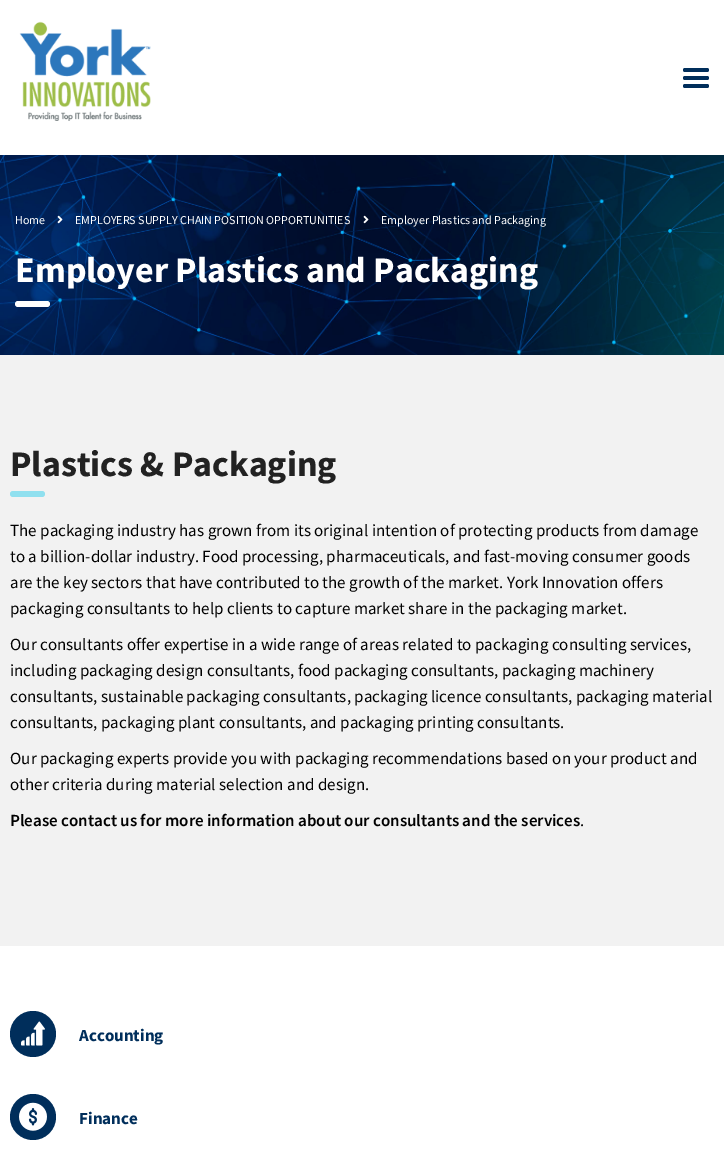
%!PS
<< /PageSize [724 1159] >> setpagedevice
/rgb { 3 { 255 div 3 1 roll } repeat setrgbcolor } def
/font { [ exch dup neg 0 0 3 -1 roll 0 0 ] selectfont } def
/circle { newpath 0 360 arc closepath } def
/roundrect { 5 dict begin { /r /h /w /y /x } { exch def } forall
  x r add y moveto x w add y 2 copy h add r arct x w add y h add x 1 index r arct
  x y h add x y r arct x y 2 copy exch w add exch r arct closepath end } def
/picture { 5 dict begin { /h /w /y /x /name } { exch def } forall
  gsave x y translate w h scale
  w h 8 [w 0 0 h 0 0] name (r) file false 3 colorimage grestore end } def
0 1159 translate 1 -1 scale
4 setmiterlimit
255 255 255 rgb
0 0 724 1159 rectfill
(img/1.rgb) 19 21 132 100 picture
0 46 91 rgb
683 76 26 4 2 roundrect fill
683 68 26 4 2 roundrect fill
683 84 26 4 2 roundrect fill
(img/2.rgb) 0 155 724 200 picture
(img/3.rgb) 57 215 6 9 picture
(img/4.rgb) 363 215 6 9 picture
255 255 255 rgb
15 301 35 6 3 roundrect fill
242 242 242 rgb
0 355 724 591 rectfill
144 224 239 rgb
10 491 35 6 3 roundrect fill
0 46 91 rgb
33 1034 23 circle fill
(img/5.rgb) 21 1021 24 25 picture
33 1117 23 circle fill
(img/6.rgb) 19 1102 28 29 picture
/SourceSansPro-Regular 12 font
255 255 255 rgb
[
  [(Home) 15 224]
  [(EMPLOYERS SUPPLY CHAIN POSITION OPPORTUNITIES) 75 224]
  [(Employer Plastics and Packaging) 381 224]
] { aload pop moveto show } forall
/SourceSansPro-Bold 36 font
15 282 moveto (Employer Plastics and Packaging) show
34 34 34 rgb
10 476 moveto (Plastics & Packaging) show
/SourceSansPro-Regular 17 font
0 0 0 rgb
[
  [(The packaging industry has grown from its original intention of protecting products from damage) 10 536]
  [(to a billion-dollar industry. Food processing, pharmaceuticals, and fast-moving consumer goods) 10 562]
  [(are the key sectors that have contributed to the growth of the market. York Innovation offers) 10 588]
  [(packaging consultants to help clients to capture market share in the packaging market.) 10 614]
  [(Our consultants offer expertise in a wide range of areas related to packaging consulting services,) 10 650]
  [(including packaging design consultants, food packaging consultants, packaging machinery) 10 676]
  [(consultants, sustainable packaging consultants, packaging licence consultants, packaging material) 10 702]
  [(consultants, packaging plant consultants, and packaging printing consultants.) 10 728]
  [(Our packaging experts provide you with packaging recommendations based on your product and) 10 764]
  [(other criteria during material selection and design.) 10 790]
] { aload pop moveto show } forall
/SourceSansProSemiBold-SemiBold 17 font
10 826 moveto (Please contact us for more information about our consultants and the services) show
/SourceSansPro-Regular 17 font
580 826 moveto (.) show
/SourceSansPro-Bold 17 font
0 46 91 rgb
79 1041 moveto (Accounting) show
79 1124 moveto (Finance) show
showpage
